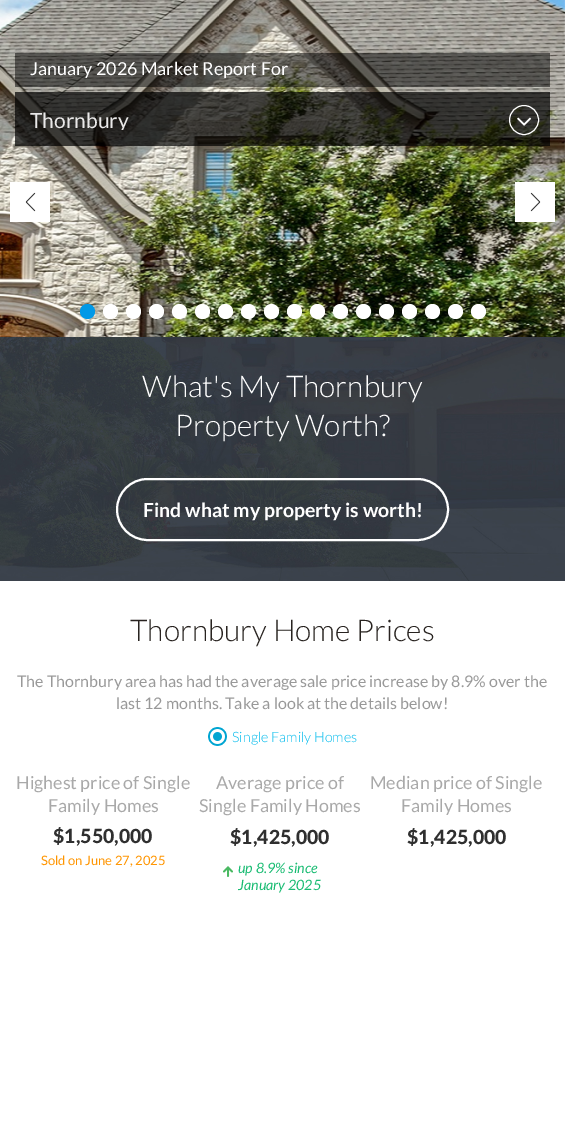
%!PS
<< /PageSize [565 1145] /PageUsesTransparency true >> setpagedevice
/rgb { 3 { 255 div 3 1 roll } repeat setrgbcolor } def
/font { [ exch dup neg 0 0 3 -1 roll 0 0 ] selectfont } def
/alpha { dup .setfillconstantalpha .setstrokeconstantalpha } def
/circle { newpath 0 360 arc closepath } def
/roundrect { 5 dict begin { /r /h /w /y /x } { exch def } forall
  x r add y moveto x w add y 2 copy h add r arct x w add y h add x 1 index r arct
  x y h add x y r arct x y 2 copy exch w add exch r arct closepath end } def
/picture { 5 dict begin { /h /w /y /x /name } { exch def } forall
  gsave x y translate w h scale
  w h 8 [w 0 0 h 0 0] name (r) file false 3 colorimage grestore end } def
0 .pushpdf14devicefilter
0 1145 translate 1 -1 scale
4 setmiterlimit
255 255 255 rgb
0 0 565 1145 rectfill
(img/1.rgb) 0 0 565 337 picture
10 182 40 40 rectfill
(img/2.rgb) 25 192 11 20 picture
515 182 40 40 rectfill
(img/3.rgb) 530 192 11 20 picture
0 153 231 rgb
87.5 311.5 7.5 circle fill
255 255 255 rgb
110.5 311.5 7.5 circle fill
133.5 311.5 7.5 circle fill
156.5 311.5 7.5 circle fill
179.5 311.5 7.5 circle fill
202.5 311.5 7.5 circle fill
225.5 311.5 7.5 circle fill
248.5 311.5 7.5 circle fill
271.5 311.5 7.5 circle fill
294.5 311.5 7.5 circle fill
317.5 311.5 7.5 circle fill
340.5 311.5 7.5 circle fill
363.5 311.5 7.5 circle fill
386.5 311.5 7.5 circle fill
409.5 311.5 7.5 circle fill
432.5 311.5 7.5 circle fill
455.5 311.5 7.5 circle fill
478.5 311.5 7.5 circle fill
0.5 alpha
0 0 0 rgb
15 53 535 34 rectfill
0.7 alpha
15 92 535 54 rectfill
1 alpha
255 255 255 rgb
524 120 14.5 circle stroke
(img/4.rgb) 517 117 15 9 picture
(img/5.rgb) 0 337 565 244 picture
2 setlinewidth
117 479 331 61 30.5 roundrect stroke
(img/6.rgb) 208 727 19 19 picture
(img/7.rgb) 223 866 10 11 picture
/Lato-Regular 17.9 font
30 75 moveto (January 2026 Market Report For) show
gsave
30 109 475 21 rectclip
/Lato-Regular 21 font
234 233 233 rgb
30 128 moveto (Thornbury) show
grestore
/Lato-Light 29.9 font
142 397 moveto (What's My Thornbury) show
175 436 moveto (Property Worth?) show
/Lato-Bold 19.5 font
143 517 moveto (Find what my property is worth!) show
/Lato-Light 29.9 font
40 35 32 rgb
130 641 moveto (Thornbury Home Prices) show
/Lato-Regular 16 font
153 153 153 rgb
17 687 moveto (The Thornbury area has had the average sale price increase by 8.9% over the) show
116 709 moveto (last 12 months. Take a look at the details below!) show
/Lato-Light 14.25 font
3 187 236 rgb
232 742 moveto (Single Family Homes) show
/Lato-Regular 17.9 font
169 169 169 rgb
16 789 moveto (Highest price of Single) show
48 812 moveto (Family Homes) show
/Lato-Black 19.5 font
47 47 47 rgb
53 843 moveto ($1,550,000) show
/Lato-Regular 13 font
255 149 0 rgb
41 865 moveto (Sold on June 27, 2025) show
/Lato-Regular 17.9 font
169 169 169 rgb
216 789 moveto (Average price of) show
199 812 moveto (Single Family Homes) show
/Lato-Black 19.5 font
47 47 47 rgb
230 844 moveto ($1,425,000) show
/Lato-Italic 14.25 font
26 188 115 rgb
238 873 moveto (up 8.9% since) show
238 890 moveto (January 2025) show
/Lato-Regular 17.9 font
169 169 169 rgb
370 789 moveto (Median price of Single) show
401 812 moveto (Family Homes) show
/Lato-Black 19.5 font
47 47 47 rgb
407 844 moveto ($1,425,000) show
.poppdf14devicefilter showpage
